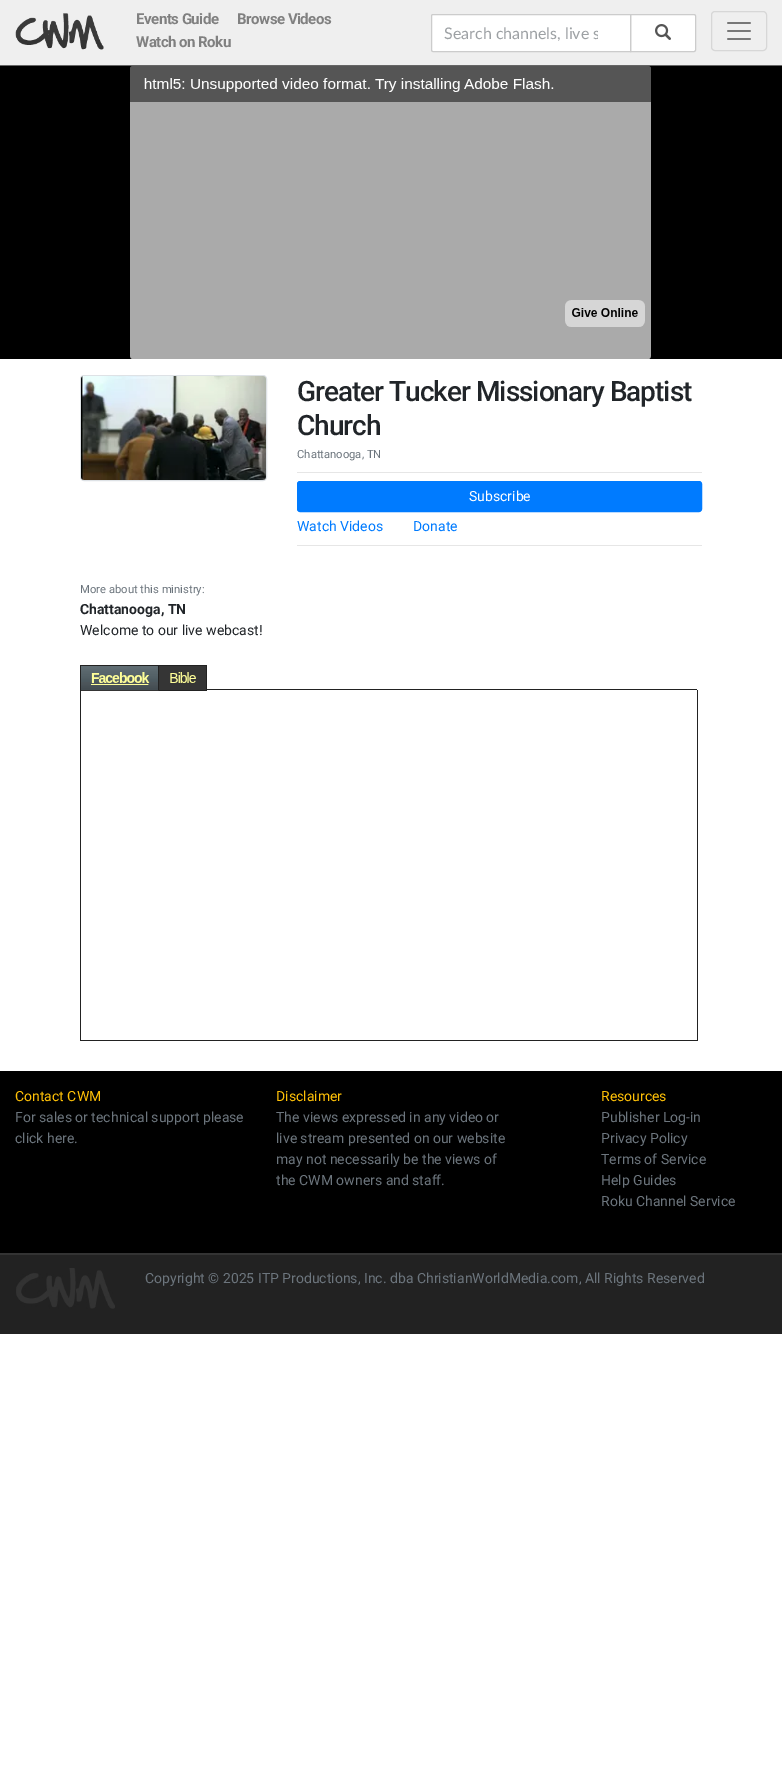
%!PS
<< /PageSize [782 1786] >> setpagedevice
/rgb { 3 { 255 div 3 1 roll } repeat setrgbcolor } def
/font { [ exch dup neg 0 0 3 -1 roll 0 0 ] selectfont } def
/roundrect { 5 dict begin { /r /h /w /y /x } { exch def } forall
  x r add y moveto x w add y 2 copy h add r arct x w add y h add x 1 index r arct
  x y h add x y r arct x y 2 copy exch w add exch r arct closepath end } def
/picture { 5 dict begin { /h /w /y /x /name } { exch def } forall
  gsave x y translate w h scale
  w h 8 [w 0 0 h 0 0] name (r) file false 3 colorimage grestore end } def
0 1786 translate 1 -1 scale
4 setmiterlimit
255 255 255 rgb
0 0 782 1786 rectfill
239 239 239 rgb
0 0 782 65 rectfill
(img/1.rgb) 15 13 89 37 picture
255 255 255 rgb
630.5 14.5 moveto 694 14.5 lineto 695 14.5 695.5 15 695.5 16 curveto 695.5 50 lineto 695.5 51 695 51.5 694 51.5 curveto 630.5 51.5 lineto closepath gsave fill grestore
204 204 204 rgb
stroke
255 255 255 rgb
433 14.5 moveto 630.5 14.5 lineto 630.5 51.5 lineto 433 51.5 lineto 432 51.5 431.5 51 431.5 50 curveto 431.5 16 lineto 431.5 15 432 14.5 433 14.5 curveto closepath gsave fill grestore
204 204 204 rgb
stroke
(img/2.rgb) 655 24 16 16 picture
215 215 215 rgb
711.5 11.5 55 39 3.5 roundrect stroke
(img/3.rgb) 727 22 24 18 picture
102 102 102 rgb
0 65 782 1 rectfill
0 0 0 rgb
0 66 782 293 rectfill
(img/4.rgb) 130 66 521 293 picture
222 226 230 rgb
80.5 375.5 186 105 3.5 roundrect stroke
(img/5.rgb) 81 376 185 104 picture
230 230 230 rgb
297 472 405 1 rectfill
0 123 255 rgb
297.5 481.5 404 30 2.5 roundrect gsave fill grestore
stroke
230 230 230 rgb
297 545 405 1 rectfill
(img/6.rgb) 80 665 618 376 picture
[
  [0 1071 782 182 0 0 0]
  [0 1255 782 79 34 34 34]
  [0 1253 782 2 51 51 51]
] { aload pop rgb rectfill } forall
(img/7.rgb) 16 1268 99 41 picture
/Roboto-Bold 15 font
128 128 128 rgb
136 24 moveto -0.5 0 (Events Guide) ashow
237 24 moveto -0.5 0 (Browse Videos) ashow
136 47 moveto -0.5 0 (Watch on Roku) ashow
gsave
444 23 154 19 rectclip
/Lato-Regular 16 font
157 161 164 rgb
444 39 moveto (Search channels, live s) show
grestore
/Roboto-Medium 28 font
33 37 41 rgb
297 401 moveto -1 0 (Greater Tucker Missionary Baptist) ashow
297 435 moveto -1 0 (Church) ashow
/Roboto-Regular 11.25 font
108 117 125 rgb
297 458 moveto (Chattanooga, TN) show
/Roboto-Regular 14 font
255 255 255 rgb
469 501 moveto (Subscribe) show
0 123 255 rgb
297 531 moveto (Watch Videos) show
413 531 moveto (Donate) show
/Roboto-Regular 11.25 font
108 117 125 rgb
80 593 moveto (More about this ministry:) show
/Roboto-Bold 14 font
33 37 41 rgb
80 614 moveto (Chattanooga, TN) show
/Roboto-Regular 14 font
80 635 moveto (Welcome to our live webcast!) show
255 193 7 rgb
15 1101 moveto (Contact CWM) show
108 117 125 rgb
15 1122 moveto (For sales or technical support please) show
15 1143 moveto (click here.) show
255 193 7 rgb
276 1101 moveto (Disclaimer) show
108 117 125 rgb
[
  [(The views expressed in any video or) 276 1122]
  [(live stream presented on our website) 276 1143]
  [(may not necessarily be the views of) 276 1164]
  [(the CWM owners and staff.) 276 1185]
] { aload pop moveto show } forall
255 193 7 rgb
601 1101 moveto (Resources) show
108 117 125 rgb
[
  [(Publisher Log-in) 601 1122]
  [(Privacy Policy) 601 1143]
  [(Terms of Service) 601 1164]
  [(Help Guides) 601 1185]
  [(Roku Channel Service) 601 1206]
  [(Copyright © 2025 ITP Productions, Inc. dba ChristianWorldMedia.com, All Rights Reserved) 145 1283]
] { aload pop moveto show } forall
showpage
